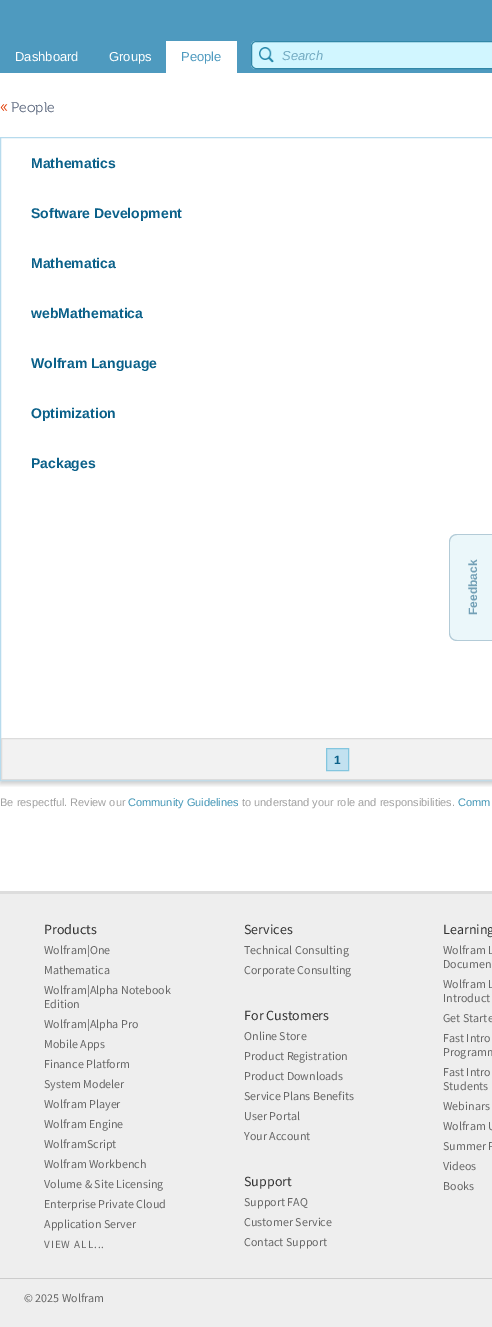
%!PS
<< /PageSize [492 1327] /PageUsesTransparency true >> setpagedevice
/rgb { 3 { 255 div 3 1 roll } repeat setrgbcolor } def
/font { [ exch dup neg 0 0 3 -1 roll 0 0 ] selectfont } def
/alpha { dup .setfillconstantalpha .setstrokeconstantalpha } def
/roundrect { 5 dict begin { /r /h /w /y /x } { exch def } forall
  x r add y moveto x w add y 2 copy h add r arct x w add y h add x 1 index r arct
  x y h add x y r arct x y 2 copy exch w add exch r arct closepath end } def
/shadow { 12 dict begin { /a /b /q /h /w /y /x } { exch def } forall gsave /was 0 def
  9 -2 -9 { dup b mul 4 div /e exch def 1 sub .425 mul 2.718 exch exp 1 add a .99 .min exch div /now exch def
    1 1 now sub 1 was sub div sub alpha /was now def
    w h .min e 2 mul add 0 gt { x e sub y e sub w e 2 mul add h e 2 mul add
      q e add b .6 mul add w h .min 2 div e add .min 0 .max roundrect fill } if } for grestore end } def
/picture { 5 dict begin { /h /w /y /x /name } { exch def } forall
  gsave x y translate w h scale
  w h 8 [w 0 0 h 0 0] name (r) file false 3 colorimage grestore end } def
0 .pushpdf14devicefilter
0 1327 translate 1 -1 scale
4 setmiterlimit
255 255 255 rgb
0 0 492 1327 rectfill
78 154 191 rgb
0 0 492 73 rectfill
255 255 255 rgb
166 41 71 32 rectfill
209 246 255 rgb
256 41 moveto 492 41 lineto 492 69 lineto 256 69 lineto 253 69 251 67 251 64 curveto 251 46 lineto 251 43 253 41 256 41 curveto closepath fill
49 135 167 rgb
251.5 41.5 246 27 4.5 roundrect stroke
(img/1.rgb) 259 47 15 16 picture
gsave
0 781 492 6 rectclip
0 0 0 rgb
0 140 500 644 0 2.5 0.2 shadow
grestore
183 219 237 rgb
0.5 137.5 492 643 rectstroke
242 242 242 rgb
1.5 738.5 moveto 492.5 738.5 lineto 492.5 779.5 lineto 1.5 779.5 lineto closepath gsave fill grestore
220 220 220 rgb
stroke
194 225 240 rgb
326.5 748.5 moveto 348.5 748.5 lineto 348.5 770.5 lineto 326.5 770.5 lineto closepath gsave fill grestore
131 198 223 rgb
stroke
235 247 250 rgb
449 633 moveto 449 542 lineto 449 537 453 534 457 534 curveto 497 534 lineto 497 641 lineto 457 641 lineto 453 641 449 638 449 633 curveto closepath fill
179 203 215 rgb
449 633 moveto 449 542 lineto 449 537 453 534 457 534 curveto 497 534 lineto 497 641 lineto 457 641 lineto 453 641 449 638 449 633 curveto closepath 450 633 moveto 450 542 lineto 450 538 453 535 457 535 curveto 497 535 lineto 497 640 lineto 457 640 lineto 453 640 450 637 450 633 curveto closepath eofill
[
  [0 894 492 433 238 238 238]
  [0 891 492 3 221 221 221]
  [0 1278 492 1 204 204 204]
] { aload pop rgb rectfill } forall
/LiberationSans-Regular 13 font
255 255 255 rgb
15 61 moveto (Dashboard) show
109 61 moveto (Groups) show
78 154 191 rgb
181 61 moveto (People) show
/LiberationSans-Italic 13 font
114 170 193 rgb
282 60 moveto (Search) show
/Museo-Light 16 font
224 56 0 rgb
0 112 moveto («) show
/Museo-Light 14 font
91 103 125 rgb
11 112 moveto (People) show
/LiberationSans-Bold 14 font
10 96 137 rgb
[
  [(Mathematics) 31 168]
  [(Software Development) 31 218]
  [(Mathematica) 31 268]
  [(webMathematica) 31 318]
  [(Wolfram Language) 31 368]
  [(Optimization) 31 418]
  [(Packages) 31 468]
] { aload pop moveto show } forall
/LiberationSans-Bold 12 font
334 764 moveto (1) show
115 160 182 rgb
gsave 477 615 translate -90 rotate 0 0 moveto (Feedback) show grestore
/LiberationSans-Regular 11 font
160 160 160 rgb
0 806 moveto (Be respectful. Review our) show
65 149 181 rgb
128 806 moveto (Community Guidelines) show
160 160 160 rgb
242 806 moveto (to understand your role and responsibilities.) show
65 149 181 rgb
458 806 moveto (Comm) show
/SourceSansPro-Regular 14 font
51 51 51 rgb
44 934 moveto (Products) show
/SourceSansPro-Regular 12 font
102 102 102 rgb
[
  [(Wolfram|One) 44 954]
  [(Mathematica) 44 974]
  [(Wolfram|Alpha Notebook) 44 994]
  [(Edition) 44 1008]
  [(Wolfram|Alpha Pro) 44 1028]
  [(Mobile Apps) 44 1048]
  [(Finance Platform) 44 1068]
  [(System Modeler) 44 1088]
  [(Wolfram Player) 44 1108]
  [(Wolfram Engine) 44 1128]
  [(WolframScript) 44 1148]
  [(Wolfram Workbench) 44 1168]
  [(Volume & Site Licensing) 44 1188]
  [(Enterprise Private Cloud) 44 1208]
  [(Application Server) 44 1228]
] { aload pop moveto show } forall
/SourceSansPro-Regular 11 font
44 1248 moveto 1 0 (VIEW ALL...) ashow
/SourceSansPro-Regular 14 font
51 51 51 rgb
244 934 moveto (Services) show
/SourceSansPro-Regular 12 font
102 102 102 rgb
244 954 moveto (Technical Consulting) show
244 974 moveto (Corporate Consulting) show
/SourceSansPro-Regular 14 font
51 51 51 rgb
244 1020 moveto (For Customers) show
/SourceSansPro-Regular 12 font
102 102 102 rgb
[
  [(Online Store) 244 1040]
  [(Product Registration) 244 1060]
  [(Product Downloads) 244 1080]
  [(Service Plans Benefits) 244 1100]
  [(User Portal) 244 1120]
  [(Your Account) 244 1140]
] { aload pop moveto show } forall
/SourceSansPro-Regular 14 font
51 51 51 rgb
244 1186 moveto (Support) show
/SourceSansPro-Regular 12 font
102 102 102 rgb
[
  [(Support FAQ) 244 1206]
  [(Customer Service) 244 1226]
  [(Contact Support) 244 1246]
] { aload pop moveto show } forall
/SourceSansPro-Regular 14 font
51 51 51 rgb
443 934 moveto (Learning) show
/SourceSansPro-Regular 12 font
102 102 102 rgb
[
  [(Wolfram L) 443 954]
  [(Documen) 443 968]
  [(Wolfram L) 443 988]
  [(Introduct) 443 1002]
  [(Get Starte) 443 1022]
  [(Fast Intro) 443 1042]
  [(Programm) 443 1056]
  [(Fast Intro) 443 1076]
  [(Students) 443 1090]
  [(Webinars) 443 1110]
  [(Wolfram U) 443 1130]
  [(Summer P) 443 1150]
  [(Videos) 443 1170]
  [(Books) 443 1190]
  [(© 2025 Wolfram) 24 1302]
] { aload pop moveto show } forall
.poppdf14devicefilter showpage
